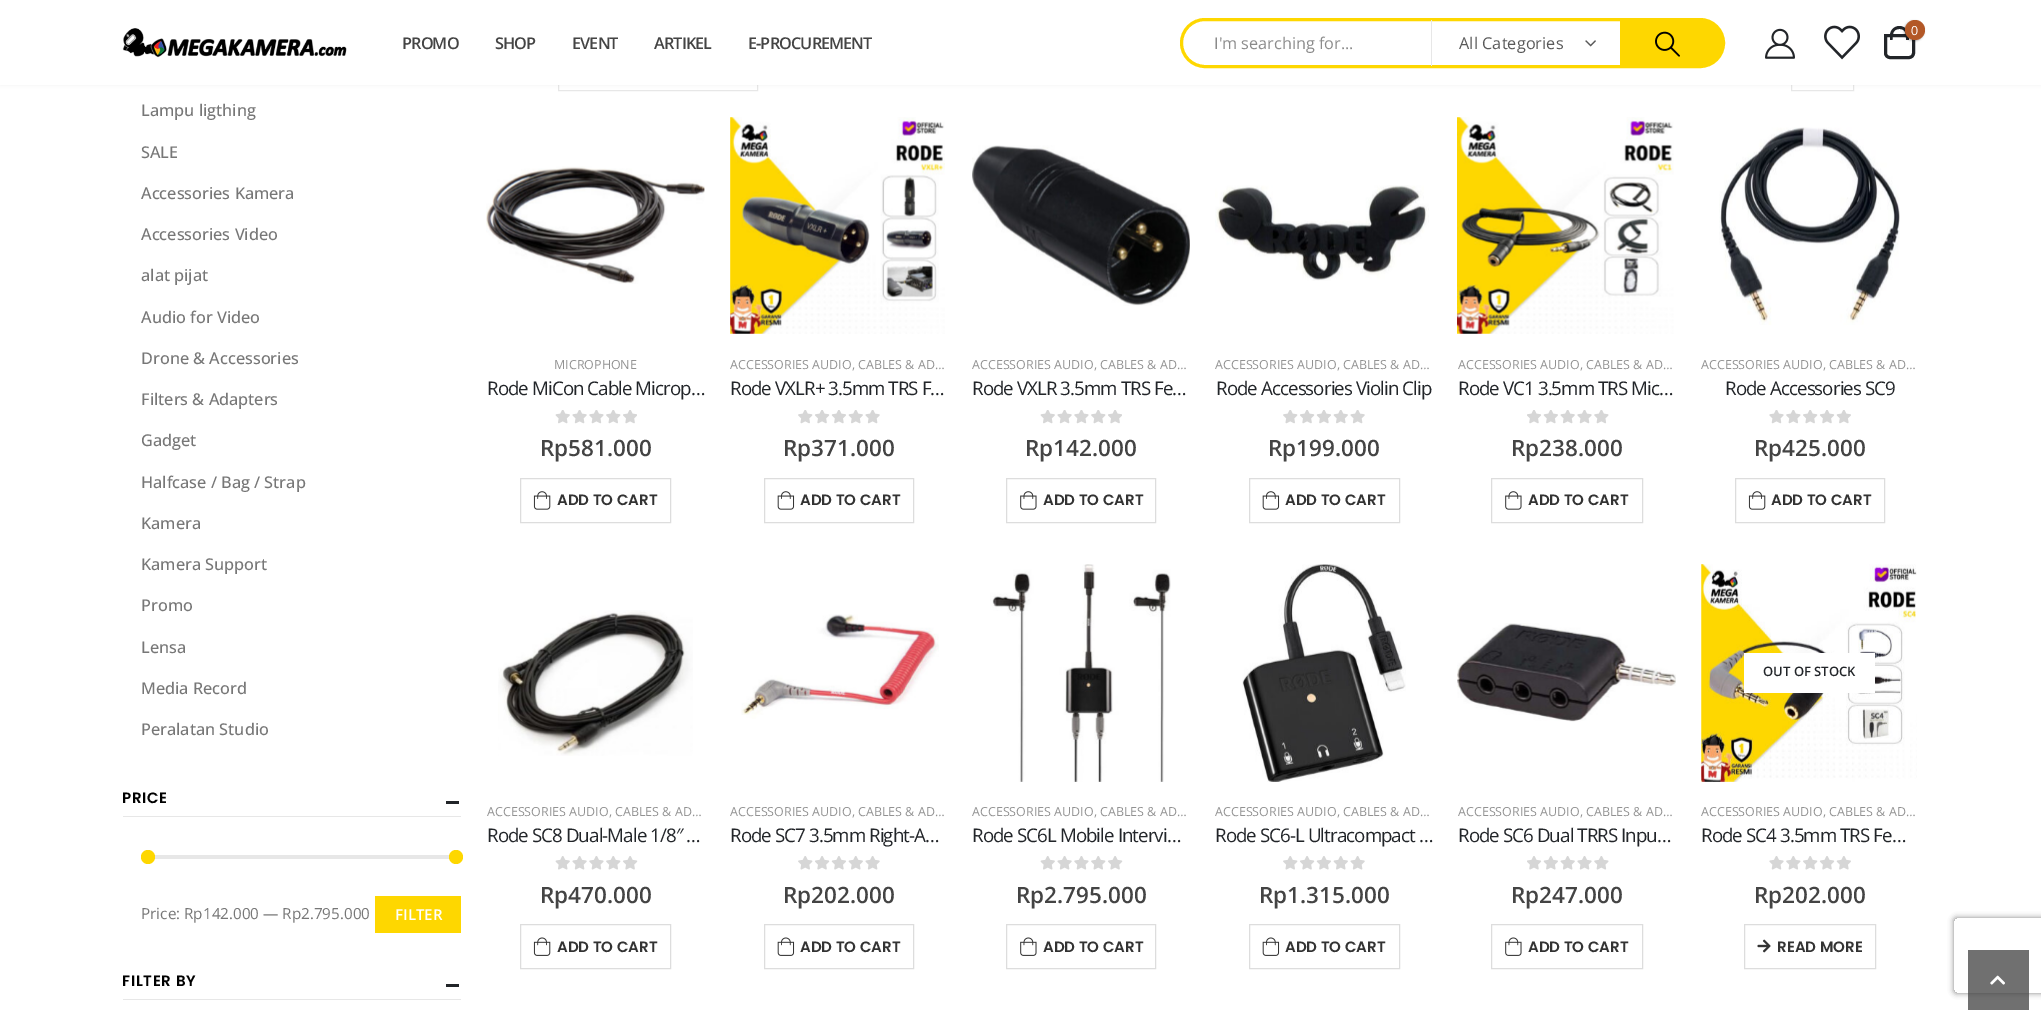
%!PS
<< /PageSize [2041 1010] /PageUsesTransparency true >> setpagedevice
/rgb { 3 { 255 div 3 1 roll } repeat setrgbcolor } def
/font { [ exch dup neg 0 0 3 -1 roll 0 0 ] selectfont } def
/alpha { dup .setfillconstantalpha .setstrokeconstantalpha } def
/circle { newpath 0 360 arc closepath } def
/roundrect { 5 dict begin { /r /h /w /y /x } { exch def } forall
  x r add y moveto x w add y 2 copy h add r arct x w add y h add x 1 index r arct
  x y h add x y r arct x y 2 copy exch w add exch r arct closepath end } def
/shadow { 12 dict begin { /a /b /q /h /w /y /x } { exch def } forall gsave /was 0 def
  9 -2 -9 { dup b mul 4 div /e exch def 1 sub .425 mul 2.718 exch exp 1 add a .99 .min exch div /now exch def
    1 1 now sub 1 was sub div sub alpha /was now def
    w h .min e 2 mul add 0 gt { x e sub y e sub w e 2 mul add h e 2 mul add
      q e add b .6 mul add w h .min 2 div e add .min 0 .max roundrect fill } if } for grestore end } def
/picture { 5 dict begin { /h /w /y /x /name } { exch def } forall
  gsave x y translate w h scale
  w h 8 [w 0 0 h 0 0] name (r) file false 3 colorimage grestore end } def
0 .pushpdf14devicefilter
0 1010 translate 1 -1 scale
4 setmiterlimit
255 255 255 rgb
0 0 2041 1010 rectfill
231 231 231 rgb
558.5 49.5 199 41 rectstroke
1791.5 49.5 62 41 rectstroke
0 0 0 rgb
0 0 2041 85 0 2 0.06 shadow
255 255 255 rgb
0 0 2041 85 rectfill
(img/1.rgb) 122 28 225 30 picture
254 215 0 rgb
3 setlinewidth
1181.5 19.5 542 47 23.5 roundrect stroke
231 231 231 rgb
1431 20 1 46 rectfill
(img/2.rgb) 1585 40 11 7 picture
254 215 0 rgb
1620 20 moveto 1700 20 lineto 1712.5 20 1723 30.5 1723 43 curveto 1723 55.5 1712.5 66 1700 66 curveto 1620 66 lineto closepath fill
(img/3.rgb) 1655 31 25 26 picture
(img/4.rgb) 1765 28 30 31 picture
(img/5.rgb) 1824 25 36 35 picture
34 37 41 rgb
1885.5 35.5 moveto 1913.5 35.5 lineto 1913.5 53 lineto 1913.5 55.5 1911.5 57.5 1909 57.5 curveto 1890 57.5 lineto 1887.5 57.5 1885.5 55.5 1885.5 53 curveto closepath stroke
1899.5 26 moveto 1904.5 26 1909 30.5 1909 35.5 curveto 1909 40 lineto 1890 40 lineto 1890 35.5 lineto 1890 30.5 1894 26 1899.5 26 curveto closepath 1899.5 29 moveto 1906.5 29 1906 35 1906 40 curveto 1892.5 40 lineto 1892.5 35 1892.5 29 1899.5 29 curveto closepath eofill
0 0 0 rgb
1904 21 20 20 10 1 0.3 shadow
179 88 39 rgb
1915 30 10 circle fill
[
  [123 816 338 1 231 231 231]
  [446 801 13 3 34 37 41]
  [141 855 309 4 231 231 231]
] { aload pop rgb rectfill } forall
254 215 0 rgb
148 857 7 circle fill
456 857 7 circle fill
[
  [375 896 86 37 254 215 0]
  [123 999 338 1 231 231 231]
  [446 984 13 3 34 37 41]
] { aload pop rgb rectfill } forall
(img/6.rgb) 486 166 219 118 picture
(img/7.rgb) 555 410 82 14 picture
221 221 221 rgb
1 setlinewidth
520.5 478.5 150 44 rectstroke
(img/8.rgb) 533 491 18 19 picture
(img/9.rgb) 730 117 215 217 picture
(img/10.rgb) 798 410 82 14 picture
764.5 478.5 149 44 rectstroke
(img/11.rgb) 777 491 18 19 picture
(img/12.rgb) 972 145 218 161 picture
(img/7.rgb) 1040 410 82 14 picture
1006.5 478.5 149 44 rectstroke
(img/13.rgb) 1020 491 17 19 picture
(img/14.rgb) 1215 185 214 96 picture
(img/10.rgb) 1283 410 82 14 picture
1249.5 478.5 150 44 rectstroke
(img/11.rgb) 1262 491 18 19 picture
(img/15.rgb) 1457 117 217 217 picture
(img/16.rgb) 1527 410 82 14 picture
1491.5 478.5 151 44 rectstroke
(img/13.rgb) 1505 491 17 19 picture
(img/17.rgb) 1719 127 181 198 picture
(img/18.rgb) 1769 410 82 14 picture
1735.5 478.5 149 44 rectstroke
(img/8.rgb) 1748 491 18 19 picture
(img/19.rgb) 498 610 195 146 picture
(img/20.rgb) 555 856 83 14 picture
520.5 924.5 150 44 rectstroke
(img/21.rgb) 533 937 18 19 picture
(img/22.rgb) 741 614 198 105 picture
(img/23.rgb) 798 856 82 14 picture
764.5 924.5 149 44 rectstroke
(img/24.rgb) 777 937 18 19 picture
(img/25.rgb) 990 564 181 218 picture
(img/20.rgb) 1040 856 83 14 picture
1006.5 924.5 149 44 rectstroke
(img/26.rgb) 1020 937 17 19 picture
(img/27.rgb) 1242 564 164 218 picture
(img/23.rgb) 1283 856 82 14 picture
1249.5 924.5 150 44 rectstroke
(img/24.rgb) 1262 937 18 19 picture
(img/28.rgb) 1457 623 219 99 picture
(img/29.rgb) 1527 856 82 14 picture
1491.5 924.5 151 44 rectstroke
(img/26.rgb) 1505 937 17 19 picture
(img/30.rgb) 1701 564 216 218 picture
255 255 255 rgb
1744 653 131 40 rectfill
(img/31.rgb) 1769 856 82 14 picture
221 221 221 rgb
1744.5 924.5 131 44 rectstroke
(img/32.rgb) 1757 939 14 14 picture
gsave
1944 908 moveto 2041 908 lineto 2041 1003 lineto 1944 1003 lineto closepath 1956.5 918 moveto 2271.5 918 lineto 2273 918 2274 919 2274 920.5 curveto 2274 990.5 lineto 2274 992 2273 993 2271.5 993 curveto 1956.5 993 lineto 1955 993 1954 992 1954 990.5 curveto 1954 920.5 lineto 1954 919 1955 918 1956.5 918 curveto closepath eoclip newpath
128 128 128 rgb
1954 918 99 75 2.5 3 1 shadow
grestore
0.75 alpha
64 64 64 rgb
1968 950 61 60 rectfill
1 alpha
(img/33.rgb) 1990 975 15 10 picture
/OpenSans-SemiBold 16.25 font
68 68 68 rgb
402 49 moveto -0.9 0 (PROMO) ashow
495 49 moveto -0.9 0 (SHOP) ashow
572 49 moveto -0.9 0 (EVENT) ashow
654 49 moveto -0.9 0 (ARTIKEL) ashow
748 49 moveto -0.9 0 (E-PROCUREMENT) ashow
/OpenSans-Regular 16.25 font
139 139 139 rgb
1214 49 moveto (I'm searching for...) show
89 89 89 rgb
1459 49 moveto 0.1 0 (All Categories) ashow
/OpenSans-Regular 12.5 font
255 255 255 rgb
1911 35 moveto (0) show
/OpenSans-Medium 16.25 font
119 119 119 rgb
[
  [(Lampu ligthing) 141 116]
  [(SALE) 141 158]
  [(Accessories Kamera) 141 199]
  [(Accessories Video) 141 240]
  [(alat pijat) 141 281]
  [(Audio for Video) 141 323]
  [(Drone & Accessories) 141 364]
  [(Filters & Adapters) 141 405]
  [(Gadget) 141 446]
  [(Halfcase / Bag / Strap) 141 488]
  [(Kamera) 141 529]
  [(Kamera Support) 141 570]
  [(Promo) 141 611]
  [(Lensa) 141 653]
  [(Media Record) 141 694]
  [(Peralatan Studio) 141 735]
] { aload pop moveto show } forall
/Poppins-SemiBold 15 font
0 0 0 rgb
122 803 moveto 0.75 0 (PRICE) ashow
/OpenSans-Regular 15.25 font
119 119 119 rgb
141 919 moveto (Price: Rp142.000 — Rp2.795.000) show
/OpenSans-SemiBold 15 font
255 255 255 rgb
395 920 moveto (FILTER) show
/Poppins-SemiBold 15 font
0 0 0 rgb
122 986 moveto 0.75 0 (FILTER BY) ashow
/OpenSans-Regular 12.5 font
146 146 146 rgb
554 369 moveto (MICROPHONE) show
/OpenSans-Regular 18.75 font
34 37 41 rgb
487 395 moveto -0.95 0 (Rode MiCon Cable Microp…) ashow
/OpenSans-SemiBold 22.5 font
68 68 68 rgb
540 456 moveto (Rp581.000) show
/Poppins-SemiBold 15 font
51 51 51 rgb
557 505 moveto (ADD TO CART) show
/OpenSans-Regular 12.5 font
146 146 146 rgb
730 369 moveto (ACCESSORIES AUDIO, CABLES & AD…) show
/OpenSans-Regular 18.75 font
34 37 41 rgb
730 395 moveto -0.95 0 (Rode VXLR+ 3.5mm TRS F…) ashow
/OpenSans-SemiBold 22.5 font
68 68 68 rgb
783 456 moveto (Rp371.000) show
/Poppins-SemiBold 15 font
51 51 51 rgb
800 505 moveto (ADD TO CART) show
/OpenSans-Regular 12.5 font
146 146 146 rgb
972 369 moveto (ACCESSORIES AUDIO, CABLES & AD…) show
/OpenSans-Regular 18.75 font
34 37 41 rgb
972 395 moveto -0.95 0 (Rode VXLR 3.5mm TRS Fe…) ashow
/OpenSans-SemiBold 22.5 font
68 68 68 rgb
1025 456 moveto (Rp142.000) show
/Poppins-SemiBold 15 font
51 51 51 rgb
1043 505 moveto (ADD TO CART) show
/OpenSans-Regular 12.5 font
146 146 146 rgb
1215 369 moveto (ACCESSORIES AUDIO, CABLES & AD…) show
/OpenSans-Regular 18.75 font
34 37 41 rgb
1216 395 moveto -0.95 0 (Rode Accessories Violin Clip) ashow
/OpenSans-SemiBold 22.5 font
68 68 68 rgb
1268 456 moveto (Rp199.000) show
/Poppins-SemiBold 15 font
51 51 51 rgb
1285 505 moveto (ADD TO CART) show
/OpenSans-Regular 12.5 font
146 146 146 rgb
1458 369 moveto (ACCESSORIES AUDIO, CABLES & AD…) show
/OpenSans-Regular 18.75 font
34 37 41 rgb
1458 395 moveto -0.95 0 (Rode VC1 3.5mm TRS Mic…) ashow
/OpenSans-SemiBold 22.5 font
68 68 68 rgb
1511 456 moveto (Rp238.000) show
/Poppins-SemiBold 15 font
51 51 51 rgb
1528 505 moveto (ADD TO CART) show
/OpenSans-Regular 12.5 font
146 146 146 rgb
1701 369 moveto (ACCESSORIES AUDIO, CABLES & AD…) show
/OpenSans-Regular 18.75 font
34 37 41 rgb
1725 395 moveto -0.95 0 (Rode Accessories SC9) ashow
/OpenSans-SemiBold 22.5 font
68 68 68 rgb
1754 456 moveto (Rp425.000) show
/Poppins-SemiBold 15 font
51 51 51 rgb
1771 505 moveto (ADD TO CART) show
/OpenSans-Regular 12.5 font
146 146 146 rgb
487 816 moveto (ACCESSORIES AUDIO, CABLES & AD…) show
/OpenSans-Regular 18.75 font
34 37 41 rgb
487 842 moveto -0.95 0 (Rode SC8 Dual-Male 1/8″ …) ashow
/OpenSans-SemiBold 22.5 font
68 68 68 rgb
540 903 moveto (Rp470.000) show
/Poppins-SemiBold 15 font
51 51 51 rgb
557 952 moveto (ADD TO CART) show
/OpenSans-Regular 12.5 font
146 146 146 rgb
730 816 moveto (ACCESSORIES AUDIO, CABLES & AD…) show
/OpenSans-Regular 18.75 font
34 37 41 rgb
730 842 moveto -0.95 0 (Rode SC7 3.5mm Right-A…) ashow
/OpenSans-SemiBold 22.5 font
68 68 68 rgb
783 903 moveto (Rp202.000) show
/Poppins-SemiBold 15 font
51 51 51 rgb
800 952 moveto (ADD TO CART) show
/OpenSans-Regular 12.5 font
146 146 146 rgb
972 816 moveto (ACCESSORIES AUDIO, CABLES & AD…) show
/OpenSans-Regular 18.75 font
34 37 41 rgb
972 842 moveto -0.95 0 (Rode SC6L Mobile Intervi…) ashow
/OpenSans-SemiBold 22.5 font
68 68 68 rgb
1016 903 moveto (Rp2.795.000) show
/Poppins-SemiBold 15 font
51 51 51 rgb
1043 952 moveto (ADD TO CART) show
/OpenSans-Regular 12.5 font
146 146 146 rgb
1215 816 moveto (ACCESSORIES AUDIO, CABLES & AD…) show
/OpenSans-Regular 18.75 font
34 37 41 rgb
1215 842 moveto -0.95 0 (Rode SC6-L Ultracompact …) ashow
/OpenSans-SemiBold 22.5 font
68 68 68 rgb
1259 903 moveto (Rp1.315.000) show
/Poppins-SemiBold 15 font
51 51 51 rgb
1285 952 moveto (ADD TO CART) show
/OpenSans-Regular 12.5 font
146 146 146 rgb
1458 816 moveto (ACCESSORIES AUDIO, CABLES & AD…) show
/OpenSans-Regular 18.75 font
34 37 41 rgb
1458 842 moveto -0.95 0 (Rode SC6 Dual TRRS Inpu…) ashow
/OpenSans-SemiBold 22.5 font
68 68 68 rgb
1511 903 moveto (Rp247.000) show
/Poppins-SemiBold 15 font
51 51 51 rgb
1528 952 moveto (ADD TO CART) show
/OpenSans-SemiBold 13 font
34 37 41 rgb
1763 676 moveto (OUT OF STOCK) show
/OpenSans-Regular 12.5 font
146 146 146 rgb
1701 816 moveto (ACCESSORIES AUDIO, CABLES & AD…) show
/OpenSans-Regular 18.75 font
34 37 41 rgb
1701 842 moveto -0.95 0 (Rode SC4 3.5mm TRS Fe…) ashow
/OpenSans-SemiBold 22.5 font
68 68 68 rgb
1754 903 moveto (Rp202.000) show
/Poppins-SemiBold 15 font
51 51 51 rgb
1777 952 moveto (READ MORE) show
.poppdf14devicefilter showpage
